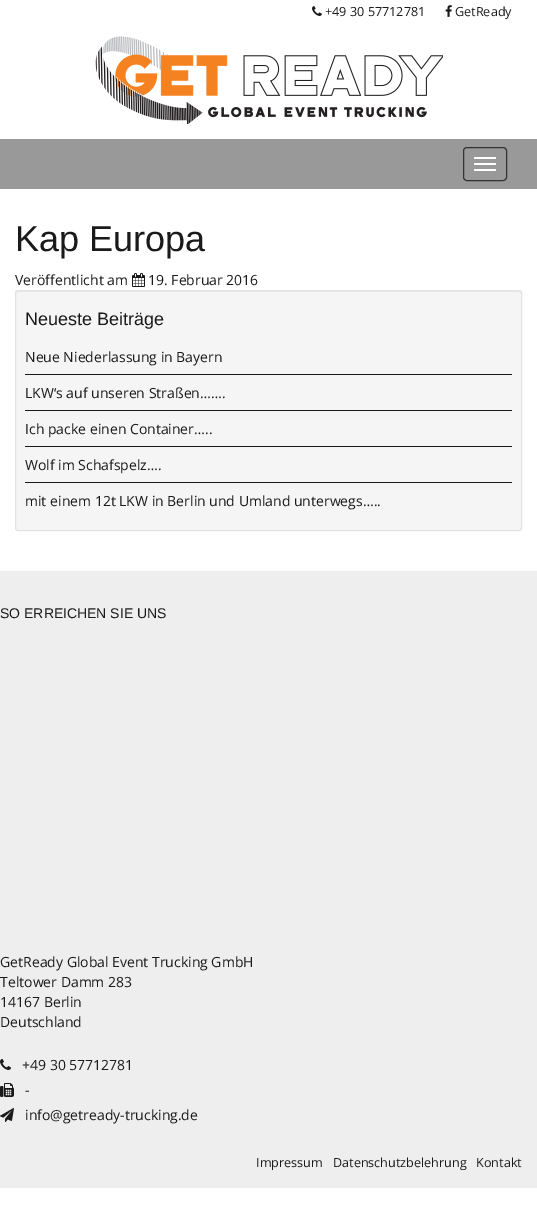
%!PS
<< /PageSize [537 1232] >> setpagedevice
/rgb { 3 { 255 div 3 1 roll } repeat setrgbcolor } def
/font { [ exch dup neg 0 0 3 -1 roll 0 0 ] selectfont } def
/roundrect { 5 dict begin { /r /h /w /y /x } { exch def } forall
  x r add y moveto x w add y 2 copy h add r arct x w add y h add x 1 index r arct
  x y h add x y r arct x y 2 copy exch w add exch r arct closepath end } def
/picture { 5 dict begin { /h /w /y /x /name } { exch def } forall
  gsave x y translate w h scale
  w h 8 [w 0 0 h 0 0] name (r) file false 3 colorimage grestore end } def
0 1232 translate 1 -1 scale
4 setmiterlimit
255 255 255 rgb
0 0 537 1232 rectfill
(img/1.rgb) 312 6 10 10 picture
(img/2.rgb) 445 5 7 12 picture
(img/3.rgb) 95 36 348 88 picture
153 153 153 rgb
0 139 537 50 rectfill
51 51 51 rgb
463.5 147.5 43 33 3.5 roundrect stroke
255 255 255 rgb
474 157 22 2 1 roundrect fill
474 163 22 2 1 roundrect fill
474 169 22 2 1 roundrect fill
(img/4.rgb) 132 273 13 14 picture
245 245 245 rgb
15 290 507 241 3 roundrect fill
233 233 233 rgb
18 292 moveto 519 292 lineto 520 292 521 293 521 294 curveto 521 293 521 291 519 291 curveto 18 291 lineto 16 292 lineto 16 294 lineto 16 293 17 292 18 292 curveto closepath fill
227 227 227 rgb
15.5 290.5 506 240 2.5 roundrect stroke
[
  [25 374 487 1 27 26 27]
  [25 410 487 1 27 26 27]
  [25 446 487 1 27 26 27]
  [25 482 487 1 27 26 27]
  [0 571 537 617 238 238 238]
] { aload pop rgb rectfill } forall
(img/5.rgb) 0 1059 11 11 picture
(img/6.rgb) 0 1083 14 14 picture
(img/7.rgb) 0 1108 14 14 picture
/OpenSans-Regular 12.6 font
27 26 27 rgb
325 16 moveto (+49 30 57712781) show
455 16 moveto (GetReady) show
/LiberationSans-Regular 36 font
15 251 moveto (Kap Europa) show
/OpenSans-Regular 14 font
15 285 moveto (Veröffentlicht am) show
148 285 moveto (19. Februar 2016) show
/LiberationSans-Regular 18 font
25 325 moveto (Neueste Beiträge) show
/OpenSans-Regular 14 font
[
  [(Neue Niederlassung in Bayern) 25 362]
  [(LKW‘s auf unseren Straßen…….) 25 398]
  [(Ich packe einen Container…..) 25 434]
  [(Wolf im Schafspelz….) 25 470]
  [(mit einem 12t LKW in Berlin und Umland unterwegs…..) 25 506]
] { aload pop moveto show } forall
/LiberationSans-Regular 14 font
0 618 moveto (SO ERREICHEN SIE UNS) show
/OpenSans-Regular 14 font
[
  [(GetReady Global Event Trucking GmbH) 0 967]
  [(Teltower Damm 283) 0 987]
  [(14167 Berlin) 0 1007]
  [(Deutschland) 0 1027]
  [(+49 30 57712781) 22 1070]
  [(-) 25 1095]
  [(info@getready-trucking.de) 25 1120]
] { aload pop moveto show } forall
/OpenSans-Regular 12.6 font
[
  [(Impressum) 256 1167]
  [(Datenschutzbelehrung) 333 1167]
  [(Kontakt) 476 1167]
] { aload pop moveto show } forall
showpage
